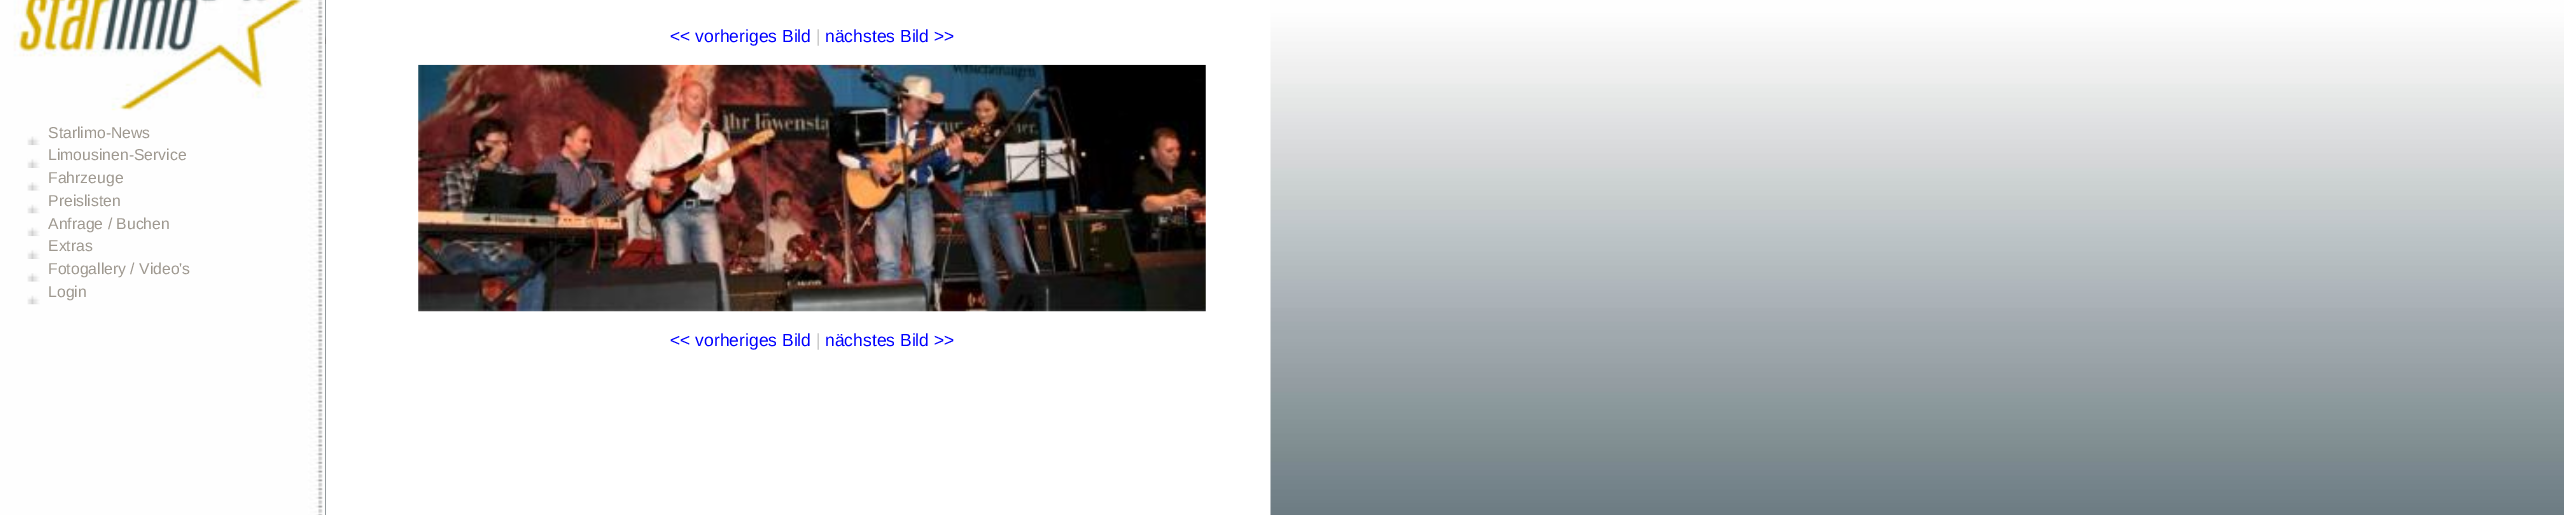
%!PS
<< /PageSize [2564 515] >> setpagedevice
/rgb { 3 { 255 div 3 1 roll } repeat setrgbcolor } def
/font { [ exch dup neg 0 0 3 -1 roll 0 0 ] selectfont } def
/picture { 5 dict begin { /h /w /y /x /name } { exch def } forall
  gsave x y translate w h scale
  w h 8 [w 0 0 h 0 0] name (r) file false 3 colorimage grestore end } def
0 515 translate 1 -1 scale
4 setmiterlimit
39 52 58 rgb
0 0 2564 515 rectfill
(img/1.rgb) 0 0 326 515 picture
(img/2.rgb) 13 0 290 111 picture
(img/3.rgb) 27 136 13 10 picture
(img/4.rgb) 27 145 13 23 picture
(img/5.rgb) 27 182 13 9 picture
(img/6.rgb) 27 190 13 24 picture
(img/7.rgb) 27 213 13 24 picture
(img/4.rgb) 27 236 13 23 picture
(img/5.rgb) 27 273 13 9 picture
(img/8.rgb) 27 281 13 24 picture
255 255 255 rgb
326 0 945 515 rectfill
(img/9.rgb) 1270 0 1294 515 picture
(img/10.rgb) 418 64 788 248 picture
/LiberationSans-Regular 15.75 font
158 152 143 rgb
[
  [(Starlimo-News) 48 138]
  [(Limousinen-Service) 48 160]
  [(Fahrzeuge) 48 183]
  [(Preislisten) 48 206]
  [(Anfrage / Buchen) 48 229]
  [(Extras) 48 251]
  [(Fotogallery / Video's) 48 274]
  [(Login) 48 297]
] { aload pop moveto show } forall
/LiberationSans-Regular 17.5 font
0 0 255 rgb
670 42 moveto (<< vorheriges Bild) show
204 204 204 rgb
816 42 moveto (|) show
0 0 255 rgb
825 42 moveto (nächstes Bild >>) show
670 346 moveto (<< vorheriges Bild) show
204 204 204 rgb
816 346 moveto (|) show
0 0 255 rgb
825 346 moveto (nächstes Bild >>) show
showpage
